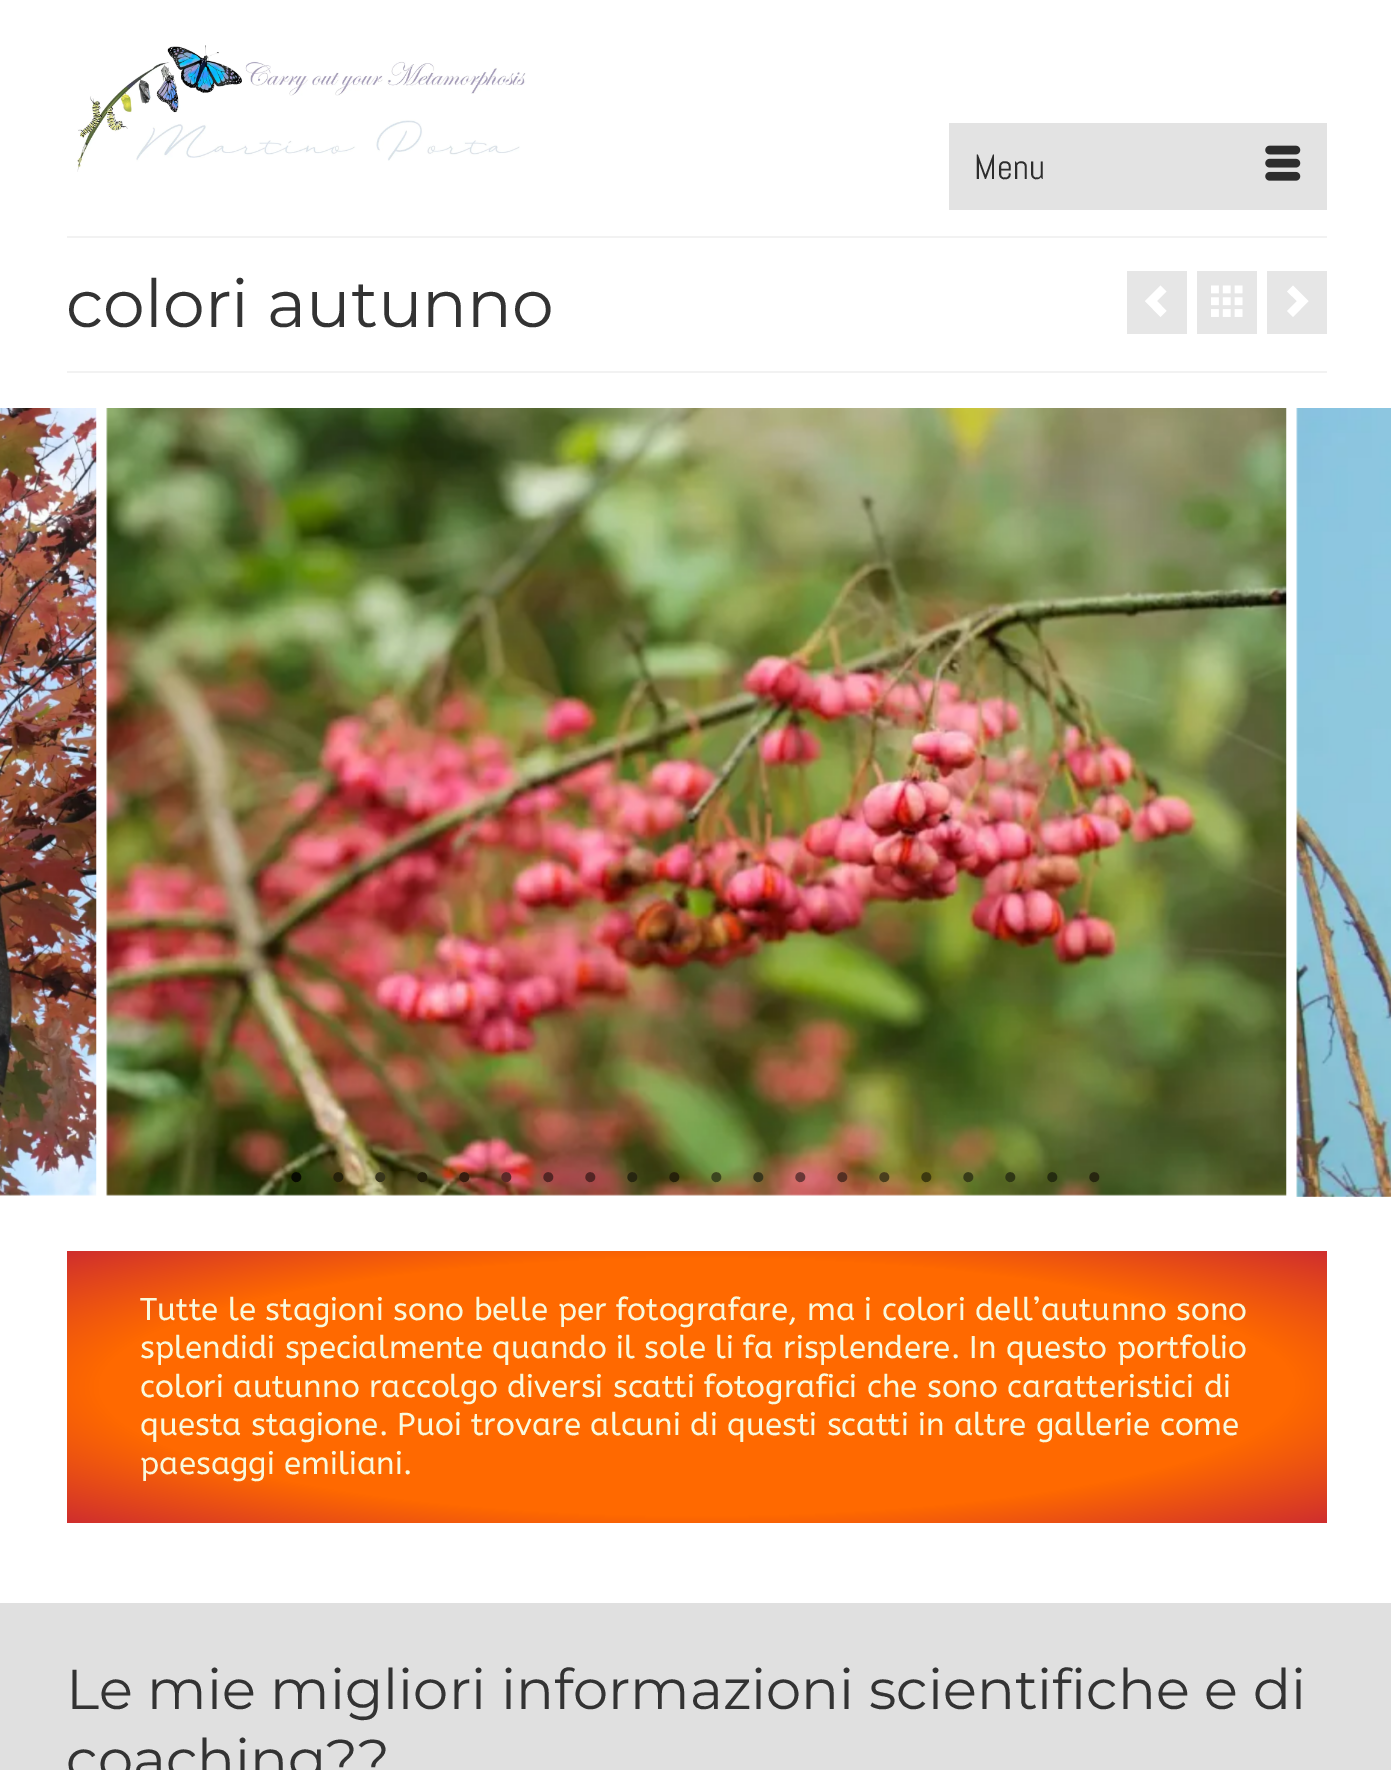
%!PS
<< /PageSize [1391 1770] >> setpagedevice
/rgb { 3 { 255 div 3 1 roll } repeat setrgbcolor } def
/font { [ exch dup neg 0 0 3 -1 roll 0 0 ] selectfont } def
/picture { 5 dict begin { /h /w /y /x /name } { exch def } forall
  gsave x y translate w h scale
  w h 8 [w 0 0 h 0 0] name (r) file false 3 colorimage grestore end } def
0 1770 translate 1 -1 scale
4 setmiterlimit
255 255 255 rgb
0 0 1391 1770 rectfill
(img/1.rgb) 77 45 449 127 picture
227 227 227 rgb
949 123 378 87 rectfill
(img/2.rgb) 1265 145 36 36 picture
[
  [67 236 1260 2 242 242 242]
  [67 371 1260 2 242 242 242]
  [1127 271 60 63 230 230 230]
  [1197 271 60 63 230 230 230]
  [1267 271 60 63 230 230 230]
] { aload pop rgb rectfill } forall
255 255 255 rgb
1160.5 317 moveto 1166.5 311 lineto 1157 301 lineto 1166.5 291.5 lineto 1160.5 285.5 lineto 1145 301 lineto closepath fill
(img/3.rgb) 1211 285 32 32 picture
1293 285.5 moveto 1287 291.5 lineto 1297 301 lineto 1287 311 lineto 1293 317 lineto 1308.5 301 lineto closepath fill
(img/4.rgb) 0 408 97 788 picture
(img/5.rgb) 106 408 1181 788 picture
(img/6.rgb) 1296 408 95 789 picture
gsave 67 1251 moveto 1327 1251 lineto 1327 1523 lineto 67 1523 lineto closepath clip newpath 697 1387 translate 891 192 scale
<< /ShadingType 3 /ColorSpace /DeviceRGB /Coords [0 0 0 0 0 1] /Extend [true true] /Function << /FunctionType 3 /Domain [0 1] /Functions [<< /FunctionType 2 /Domain [0 1] /C0 [1 0.412 0] /C1 [1 0.412 0] /N 1 >> << /FunctionType 2 /Domain [0 1] /C0 [1 0.412 0] /C1 [0.812 0.18 0.18] /N 1 >>] /Bounds [0.67] /Encode [0 1 0 1] >> >> shfill grestore
224 224 224 rgb
0 1603 1391 167 rectfill
/Abel-Regular 35 font
45 45 45 rgb
974 179 moveto (Menu) show
/Montserrat-Regular 66.5 font
51 51 51 rgb
66 327 moveto (colori autunno) show
/LiberationSerif-Regular 42 font
8 11 2 rgb
289 1191 moveto (•) show
38 33 10 rgb
331 1191 moveto (•) show
56 54 28 rgb
373 1191 moveto (•) show
38 33 10 rgb
415 1191 moveto (•) show
56 29 15 rgb
457 1191 moveto (•) show
92 40 40 rgb
499 1191 moveto (•) show
83 37 36 rgb
541 1191 moveto (•) show
583 1191 moveto (•) show
39 38 16 rgb
625 1191 moveto (•) show
38 33 10 rgb
667 1191 moveto (•) show
59 69 31 rgb
709 1191 moveto (•) show
56 54 28 rgb
751 1191 moveto (•) show
105 55 55 rgb
793 1191 moveto (•) show
85 47 35 rgb
835 1191 moveto (•) show
74 62 29 rgb
877 1191 moveto (•) show
61 57 15 rgb
919 1191 moveto (•) show
55 60 24 rgb
961 1191 moveto (•) show
47 55 21 rgb
1003 1191 moveto (•) show
37 44 16 rgb
1045 1191 moveto (•) show
39 38 16 rgb
1087 1191 moveto (•) show
/ABeeZee-Regular 31.5 font
249 249 220 rgb
[
  [(Tutte le stagioni sono belle per fotografare, ma i colori dell’autunno sono) 140 1320]
  [(splendidi specialmente quando il sole li fa risplendere. In questo portfolio) 140 1358]
  [(colori autunno raccolgo diversi scatti fotografici che sono caratteristici di) 140 1397]
  [(questa stagione. Puoi trovare alcuni di questi scatti in altre gallerie come) 140 1435]
  [(paesaggi emiliani.) 140 1474]
] { aload pop moveto show } forall
/Montserrat-Regular 56 font
51 51 51 rgb
66 1709 moveto (Le mie migliori informazioni scientifiche e di) show
66 1779 moveto (coaching??) show
showpage
